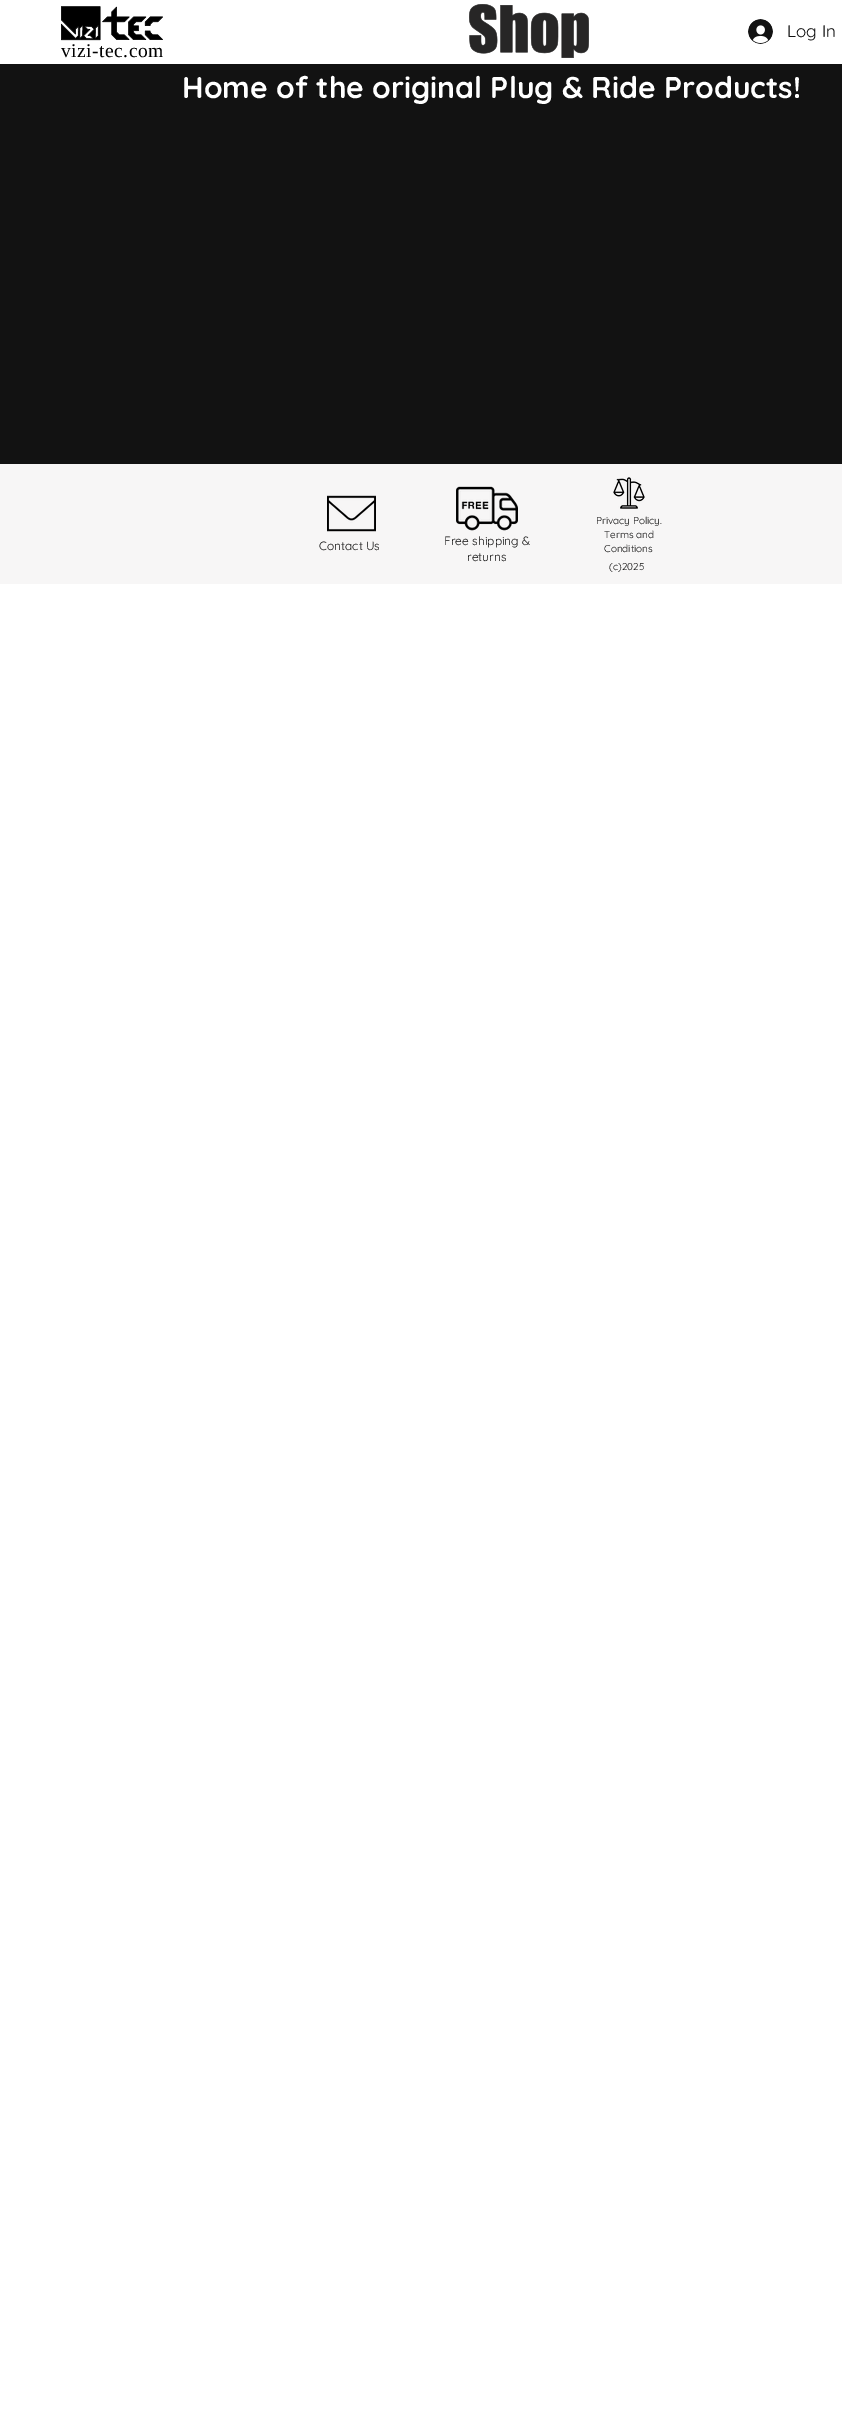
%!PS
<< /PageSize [842 2429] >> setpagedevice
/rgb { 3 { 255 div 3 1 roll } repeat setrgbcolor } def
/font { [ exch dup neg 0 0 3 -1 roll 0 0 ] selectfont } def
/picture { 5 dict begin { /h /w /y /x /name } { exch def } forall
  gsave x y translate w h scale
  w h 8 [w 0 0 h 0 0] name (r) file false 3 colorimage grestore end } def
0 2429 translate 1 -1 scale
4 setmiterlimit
255 255 255 rgb
0 0 842 2429 rectfill
(img/1.rgb) 469 4 120 54 picture
(img/2.rgb) 748 19 25 25 picture
(img/3.rgb) 61 6 102 35 picture
18 18 18 rgb
0 64 842 400 rectfill
247 246 246 rgb
0 464 842 120 rectfill
(img/4.rgb) 327 495 49 37 picture
(img/5.rgb) 456 486 62 45 picture
(img/6.rgb) 613 477 32 32 picture
/Quicksand-Regular 17 font
18 18 18 rgb
787 37 moveto (Log In) show
/LiberationSerif-Regular 19.5 font
0 0 0 rgb
61 57 moveto 0.5 0 (vizi-tec.com) ashow
/Quicksand-Bold 30 font
255 255 255 rgb
182 98 moveto (Home of the original Plug & Ride Products!) show
/Quicksand-Regular 12 font
18 18 18 rgb
[
  [(Contact Us) 319 550]
  [(Free shipping &) 444 545]
  [(returns) 467 561]
] { aload pop moveto show } forall
/Quicksand-Regular 10 font
[
  [(Privacy Policy.) 596 524]
  [(Terms and) 604 538]
  [(Conditions) 604 552]
  [(\(c\)2025) 609 570]
] { aload pop moveto show } forall
showpage
